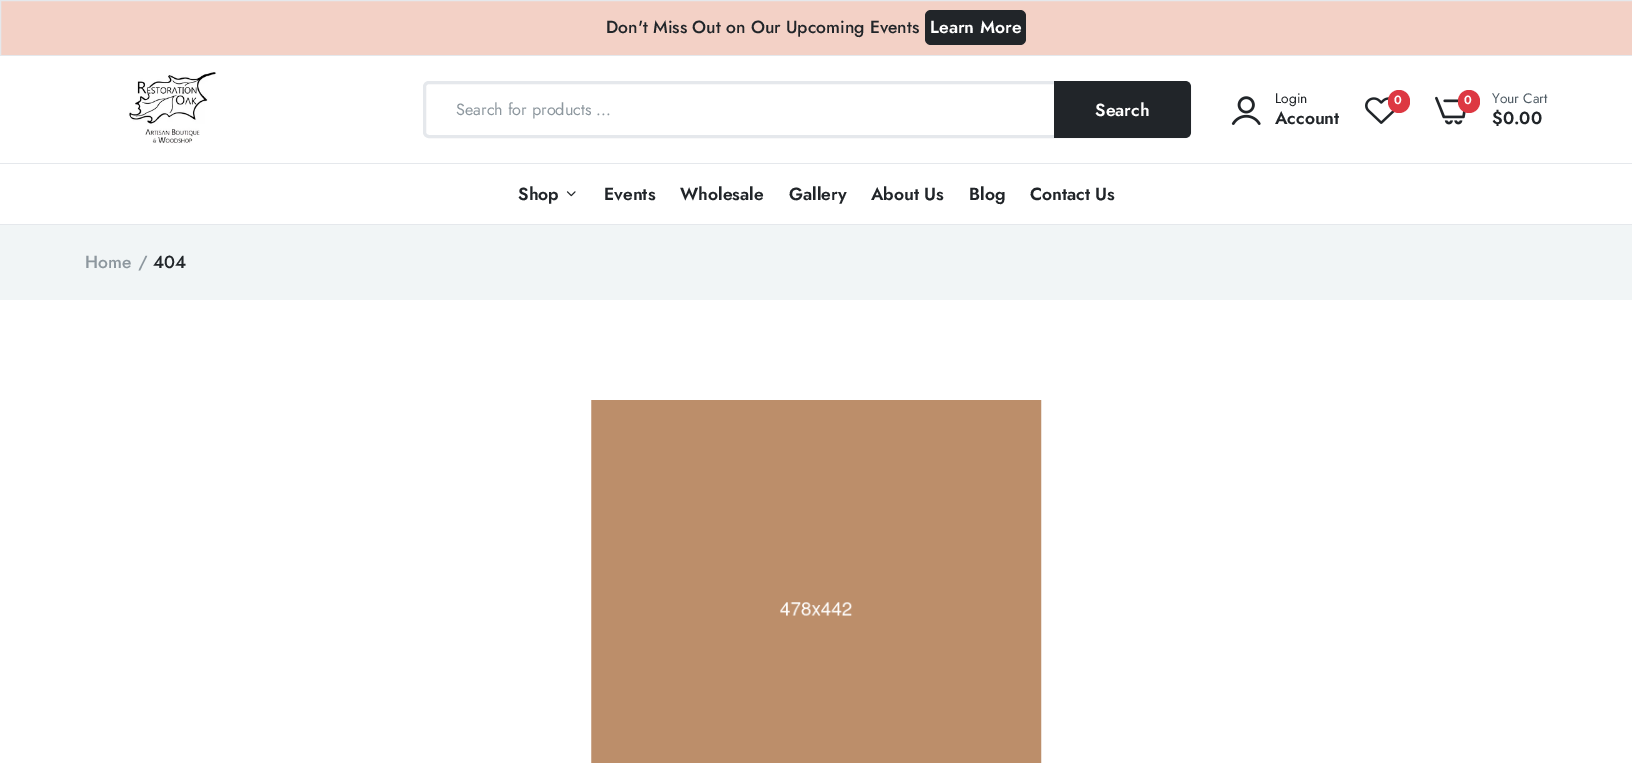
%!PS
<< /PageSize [1632 763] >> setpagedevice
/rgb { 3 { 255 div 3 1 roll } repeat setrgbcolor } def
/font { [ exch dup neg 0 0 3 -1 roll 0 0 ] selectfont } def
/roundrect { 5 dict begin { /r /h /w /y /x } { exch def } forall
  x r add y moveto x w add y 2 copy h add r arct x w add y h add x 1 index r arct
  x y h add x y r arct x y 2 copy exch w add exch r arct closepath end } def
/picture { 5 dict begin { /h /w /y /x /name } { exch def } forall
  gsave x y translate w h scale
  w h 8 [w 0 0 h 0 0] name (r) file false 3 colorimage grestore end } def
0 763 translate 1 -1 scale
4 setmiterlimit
241 245 246 rgb
0 0 1632 763 rectfill
243 209 198 rgb
0.5 0.5 moveto 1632.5 0.5 lineto 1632.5 55.5 lineto 0.5 55.5 lineto closepath gsave fill grestore
229 232 236 rgb
stroke
33 37 41 rgb
925 10 101 35 6 roundrect fill
255 255 255 rgb
0 56 1632 168 rectfill
(img/1.rgb) 128 71 89 73 picture
229 232 236 rgb
3 setlinewidth
424.5 82.5 765 54 4.5 roundrect stroke
33 37 41 rgb
1054 81 moveto 1185 81 lineto 1188.5 81 1191 83.5 1191 87 curveto 1191 132 lineto 1191 135.5 1188.5 138 1185 138 curveto 1054 138 lineto closepath fill
(img/2.rgb) 1231 96 30 29 picture
(img/3.rgb) 1365 97 30 27 picture
221 56 66 rgb
1388 90 22 23 11 roundrect fill
(img/4.rgb) 1435 96 31 29 picture
1458 90 22 23 11 roundrect fill
229 232 236 rgb
0 163 1632 1 rectfill
0 224 1632 1 rectfill
(img/5.rgb) 566 191 10 6 picture
255 255 255 rgb
0 300 1632 463 rectfill
(img/6.rgb) 591 400 451 363 picture
/Jost-Medium 17.5 font
33 37 41 rgb
606 33 moveto (Don't Miss Out on Our Upcoming Events) show
/Jost-SemiBold 17.5 font
255 255 255 rgb
930 33 moveto (Learn More) show
/Jost-Regular 16.25 font
141 151 158 rgb
456 115 moveto (Search for products ...) show
/Jost-SemiBold 17.5 font
255 255 255 rgb
1095 116 moveto (Search) show
/Jost-Regular 13.75 font
33 37 41 rgb
1275 103 moveto (Login) show
/Jost-SemiBold 17.5 font
1275 124 moveto (Account) show
/Jost-SemiBold 12 font
255 255 255 rgb
1394 104 moveto (0) show
1464 104 moveto (0) show
/Jost-Regular 13.75 font
81 93 102 rgb
1492 103 moveto (Your Cart) show
/Jost-SemiBold 17.5 font
33 37 41 rgb
[
  [($0.00) 1492 124]
  [(Shop) 518 200]
  [(Events) 604 200]
  [(Wholesale) 680 200]
  [(Gallery) 789 200]
  [(About Us) 871 200]
  [(Blog) 969 200]
  [(Contact Us) 1030 200]
] { aload pop moveto show } forall
/Jost-Medium 17.5 font
141 151 158 rgb
85 268 moveto (Home) show
138 268 moveto (/) show
33 37 41 rgb
153 268 moveto (404) show
showpage
